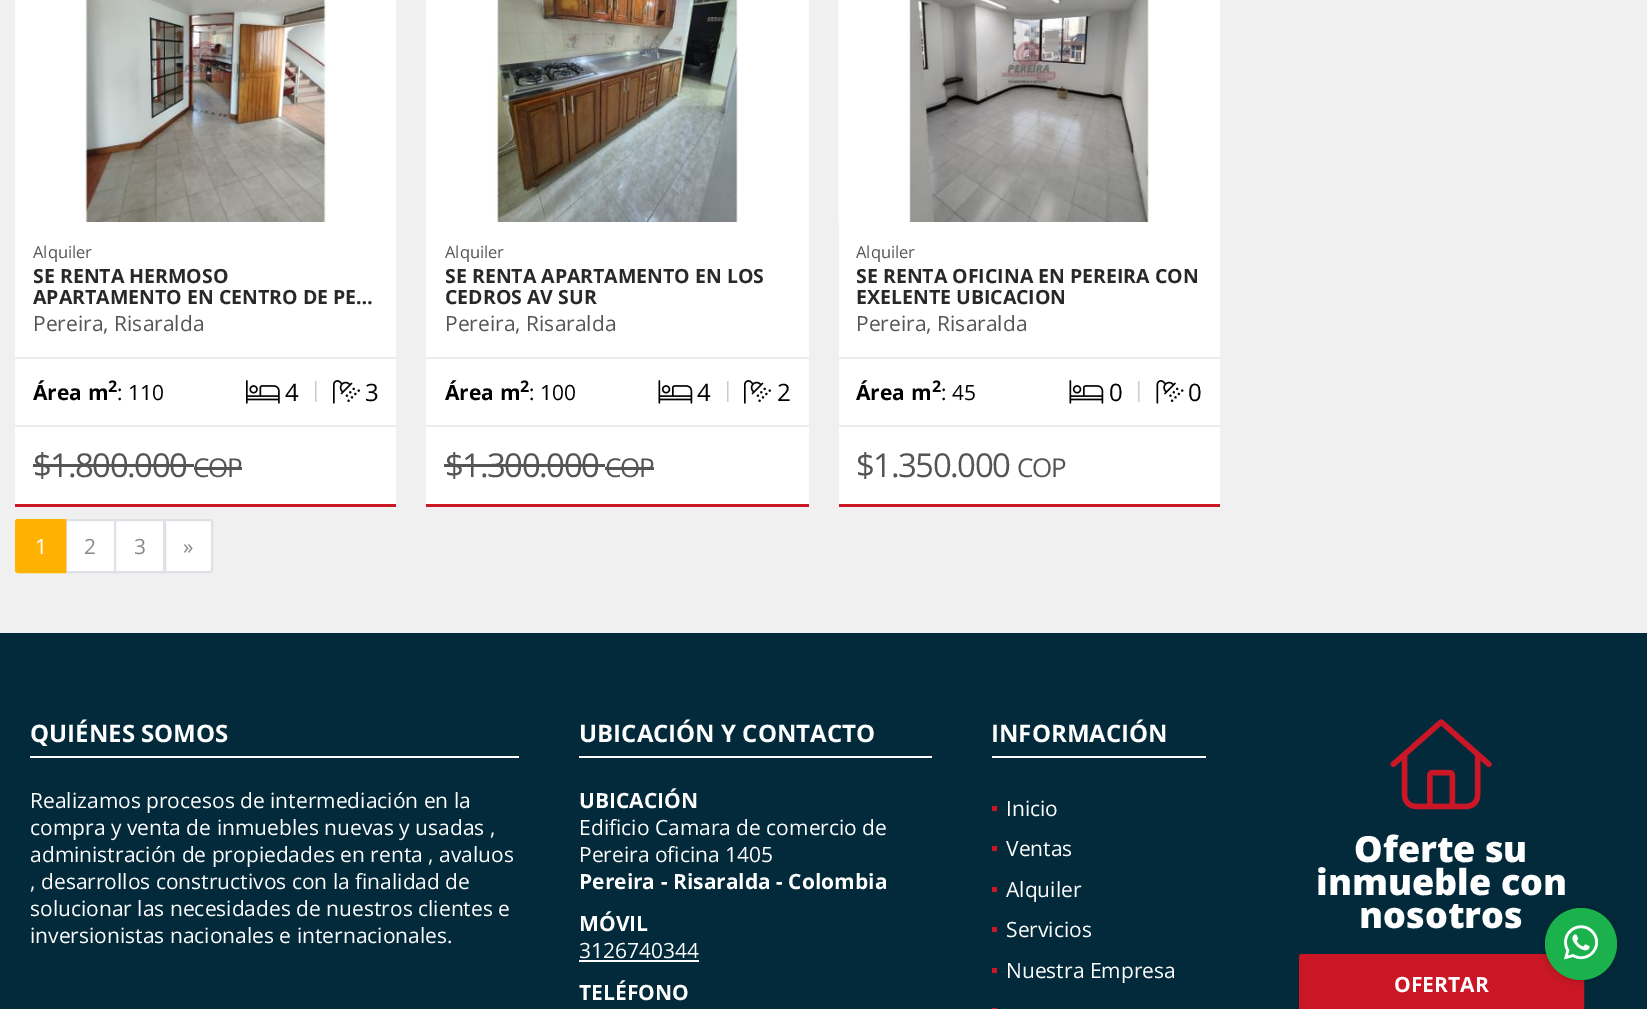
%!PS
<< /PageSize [1647 1009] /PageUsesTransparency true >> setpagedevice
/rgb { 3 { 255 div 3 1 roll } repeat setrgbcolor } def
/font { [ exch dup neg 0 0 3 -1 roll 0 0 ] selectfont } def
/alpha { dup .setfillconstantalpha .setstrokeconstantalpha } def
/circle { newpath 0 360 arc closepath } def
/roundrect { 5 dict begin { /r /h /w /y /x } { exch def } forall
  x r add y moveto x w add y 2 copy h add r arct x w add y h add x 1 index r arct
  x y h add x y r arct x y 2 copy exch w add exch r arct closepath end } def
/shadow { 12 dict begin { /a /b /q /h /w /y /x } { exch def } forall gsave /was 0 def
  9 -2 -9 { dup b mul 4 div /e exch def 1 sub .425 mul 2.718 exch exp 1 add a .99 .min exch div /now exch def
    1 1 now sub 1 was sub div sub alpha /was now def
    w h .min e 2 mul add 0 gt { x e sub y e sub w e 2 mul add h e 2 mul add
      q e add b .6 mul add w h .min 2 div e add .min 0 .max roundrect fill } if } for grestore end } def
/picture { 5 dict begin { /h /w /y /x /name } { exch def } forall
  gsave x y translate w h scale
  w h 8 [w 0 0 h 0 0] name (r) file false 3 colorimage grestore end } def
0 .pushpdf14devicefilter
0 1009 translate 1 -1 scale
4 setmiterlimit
240 240 240 rgb
0 0 1647 1009 rectfill
203 23 37 rgb
15 504 381 3 rectfill
255 255 255 rgb
15 0 381 504 rectfill
(img/1.rgb) 81 0 248 222 picture
235 235 235 rgb
15 357 381 2 rectfill
15 425 381 2 rectfill
(img/2.rgb) 246 380 34 24 picture
(img/3.rgb) 333 380 27 24 picture
85 85 85 rgb
33 464 161 3 rectfill
194 467 48 3 rectfill
203 23 37 rgb
426 504 moveto 426 507 lineto 809 507 lineto 809 -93 lineto 808 -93 lineto 808 504 lineto closepath fill
255 255 255 rgb
426 0 383 504 rectfill
(img/4.rgb) 490 0 248 222 picture
235 235 235 rgb
426 357 383 2 rectfill
426 425 383 2 rectfill
(img/5.rgb) 658 380 35 24 picture
(img/3.rgb) 744 380 27 24 picture
85 85 85 rgb
444 464 161 3 rectfill
605 467 49 3 rectfill
203 23 37 rgb
839 504 moveto 839 507 lineto 1220 507 lineto 1220 -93 lineto 1220 504 lineto closepath fill
255 255 255 rgb
839 0 381 504 rectfill
(img/6.rgb) 838 0 311 222 picture
235 235 235 rgb
839 357 381 2 rectfill
839 425 381 2 rectfill
(img/5.rgb) 1069 380 35 24 picture
(img/7.rgb) 1156 380 28 24 picture
255 255 255 rgb
66 520 moveto 115 520 lineto 115 572 lineto 66 572 lineto closepath gsave fill grestore
222 226 230 rgb
2 setlinewidth
stroke
255 178 1 rgb
18 520 moveto 65 520 lineto 65 572 lineto 18 572 lineto 17 572 16 571 16 570 curveto 16 522 lineto 16 521 17 520 18 520 curveto closepath gsave fill grestore
stroke
255 255 255 rgb
115 520 moveto 164 520 lineto 164 572 lineto 115 572 lineto closepath gsave fill grestore
222 226 230 rgb
stroke
255 255 255 rgb
165 520 moveto 210 520 lineto 211 520 212 521 212 522 curveto 212 570 lineto 212 571 211 572 210 572 curveto 165 572 lineto closepath gsave fill grestore
222 226 230 rgb
stroke
[
  [0 633 1647 376 2 42 59]
  [30 756 489 2 255 255 255]
  [579 756 353 2 255 255 255]
  [579 960 120 2 255 255 255]
  [992 756 214 2 255 255 255]
  [992 806 5 5 203 23 37]
  [992 846 5 5 203 23 37]
  [992 887 5 5 203 23 37]
  [992 927 5 5 203 23 37]
  [992 968 5 5 203 23 37]
  [992 1008 5 1 203 23 37]
] { aload pop rgb rectfill } forall
(img/8.rgb) 1390 719 102 91 picture
0 0 0 rgb
1299 957 285 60 3 1.5 0.2 shadow
203 23 37 rgb
1300 955 283 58 2 roundrect gsave fill grestore
stroke
0 0 0 rgb
1545 908 72 72 36 4.5 0.2 shadow
27 178 78 rgb
1581 944 36 circle fill
(img/9.rgb) 1564 925 35 35 picture
/OpenSans-Regular 16.5 font
85 85 85 rgb
33 258 moveto (Alquiler) show
/OpenSans-Bold 19.5 font
40 40 40 rgb
33 283 moveto (SE RENTA HERMOSO) show
33 304 moveto (APARTAMENTO EN CENTRO DE PE…) show
/OpenSans-Regular 21 font
85 85 85 rgb
33 331 moveto (Pereira, Risaralda) show
/OpenSans-Bold 21 font
0 0 0 rgb
33 400 moveto (Área m) show
/OpenSans-Bold 16 font
108 392 moveto (2) show
/OpenSans-Regular 21 font
117 400 moveto (: 110) show
/OpenSans-Regular 24 font
285 401 moveto (4) show
/OpenSans-Regular 21 font
204 204 204 rgb
310 397 moveto (|) show
/OpenSans-Regular 24 font
0 0 0 rgb
365 401 moveto (3) show
/OpenSans-Regular 33 font
85 85 85 rgb
33 477 moveto -1.5 0 ($1.800.000) ashow
/OpenSans-Regular 26 font
193 477 moveto -1.5 0 (COP) ashow
/OpenSans-Regular 16.5 font
445 258 moveto (Alquiler) show
/OpenSans-Bold 19.5 font
40 40 40 rgb
445 283 moveto (SE RENTA APARTAMENTO EN LOS) show
445 304 moveto (CEDROS AV SUR) show
/OpenSans-Regular 21 font
85 85 85 rgb
445 331 moveto (Pereira, Risaralda) show
/OpenSans-Bold 21 font
0 0 0 rgb
445 400 moveto (Área m) show
/OpenSans-Bold 16 font
520 392 moveto (2) show
/OpenSans-Regular 21 font
529 400 moveto (: 100) show
/OpenSans-Regular 24 font
697 401 moveto (4) show
/OpenSans-Regular 21 font
204 204 204 rgb
722 397 moveto (|) show
/OpenSans-Regular 24 font
0 0 0 rgb
777 401 moveto (2) show
/OpenSans-Regular 33 font
85 85 85 rgb
445 477 moveto -1.5 0 ($1.300.000) ashow
/OpenSans-Regular 26 font
605 477 moveto -1.5 0 (COP) ashow
/OpenSans-Regular 16.5 font
856 258 moveto (Alquiler) show
/OpenSans-Bold 19.5 font
40 40 40 rgb
856 283 moveto (SE RENTA OFICINA EN PEREIRA CON) show
856 304 moveto (EXELENTE UBICACION) show
/OpenSans-Regular 21 font
85 85 85 rgb
856 331 moveto (Pereira, Risaralda) show
/OpenSans-Bold 21 font
0 0 0 rgb
856 400 moveto (Área m) show
/OpenSans-Bold 16 font
932 392 moveto (2) show
/OpenSans-Regular 21 font
941 400 moveto (: 45) show
/OpenSans-Regular 24 font
1109 401 moveto (0) show
/OpenSans-Regular 21 font
204 204 204 rgb
1133 397 moveto (|) show
/OpenSans-Regular 24 font
0 0 0 rgb
1188 401 moveto (0) show
/OpenSans-Regular 33 font
85 85 85 rgb
856 477 moveto -1.5 0 ($1.350.000) ashow
/OpenSans-Regular 26 font
1017 477 moveto -1.5 0 (COP) ashow
/OpenSans-Regular 21 font
255 255 255 rgb
35 554 moveto (1) show
136 136 136 rgb
[
  [(2) 84 554]
  [(3) 134 554]
  [(») 183 554]
] { aload pop moveto show } forall
/OpenSans-Bold 24 font
255 255 255 rgb
30 742 moveto (QUIÉNES SOMOS) show
/OpenSans-Regular 21 font
[
  [(Realizamos procesos de intermediación en la) 30 808]
  [(compra y venta de inmuebles nuevas y usadas ,) 30 835]
  [(administración de propiedades en renta , avaluos) 30 862]
  [(, desarrollos constructivos con la finalidad de) 30 889]
  [(solucionar las necesidades de nuestros clientes e) 30 916]
  [(inversionistas nacionales e internacionales.) 30 943]
] { aload pop moveto show } forall
/OpenSans-Bold 24 font
579 742 moveto (UBICACIÓN Y CONTACTO) show
/OpenSans-Bold 21 font
579 808 moveto (UBICACIÓN) show
/OpenSans-Regular 21 font
579 835 moveto (Edificio Camara de comercio de) show
579 862 moveto (Pereira oficina 1405) show
/OpenSans-Bold 21 font
579 889 moveto (Pereira - Risaralda - Colombia) show
579 931 moveto (MÓVIL) show
/OpenSans-Regular 21 font
579 958 moveto (3126740344) show
/OpenSans-Bold 21 font
579 1000 moveto (TELÉFONO) show
/OpenSans-Bold 24 font
991 742 moveto (INFORMACIÓN) show
/OpenSans-Regular 21 font
[
  [(Inicio) 1006 816]
  [(Ventas) 1006 856]
  [(Alquiler) 1006 897]
  [(Servicios) 1006 937]
  [(Nuestra Empresa) 1006 978]
] { aload pop moveto show } forall
/OpenSans-ExtraBold 36 font
[
  [(Oferte su) 1354 862]
  [(inmueble con) 1316 895]
  [(nosotros) 1359 928]
] { aload pop moveto show } forall
/OpenSans-Bold 21 font
1394 992 moveto (OFERTAR) show
.poppdf14devicefilter showpage
